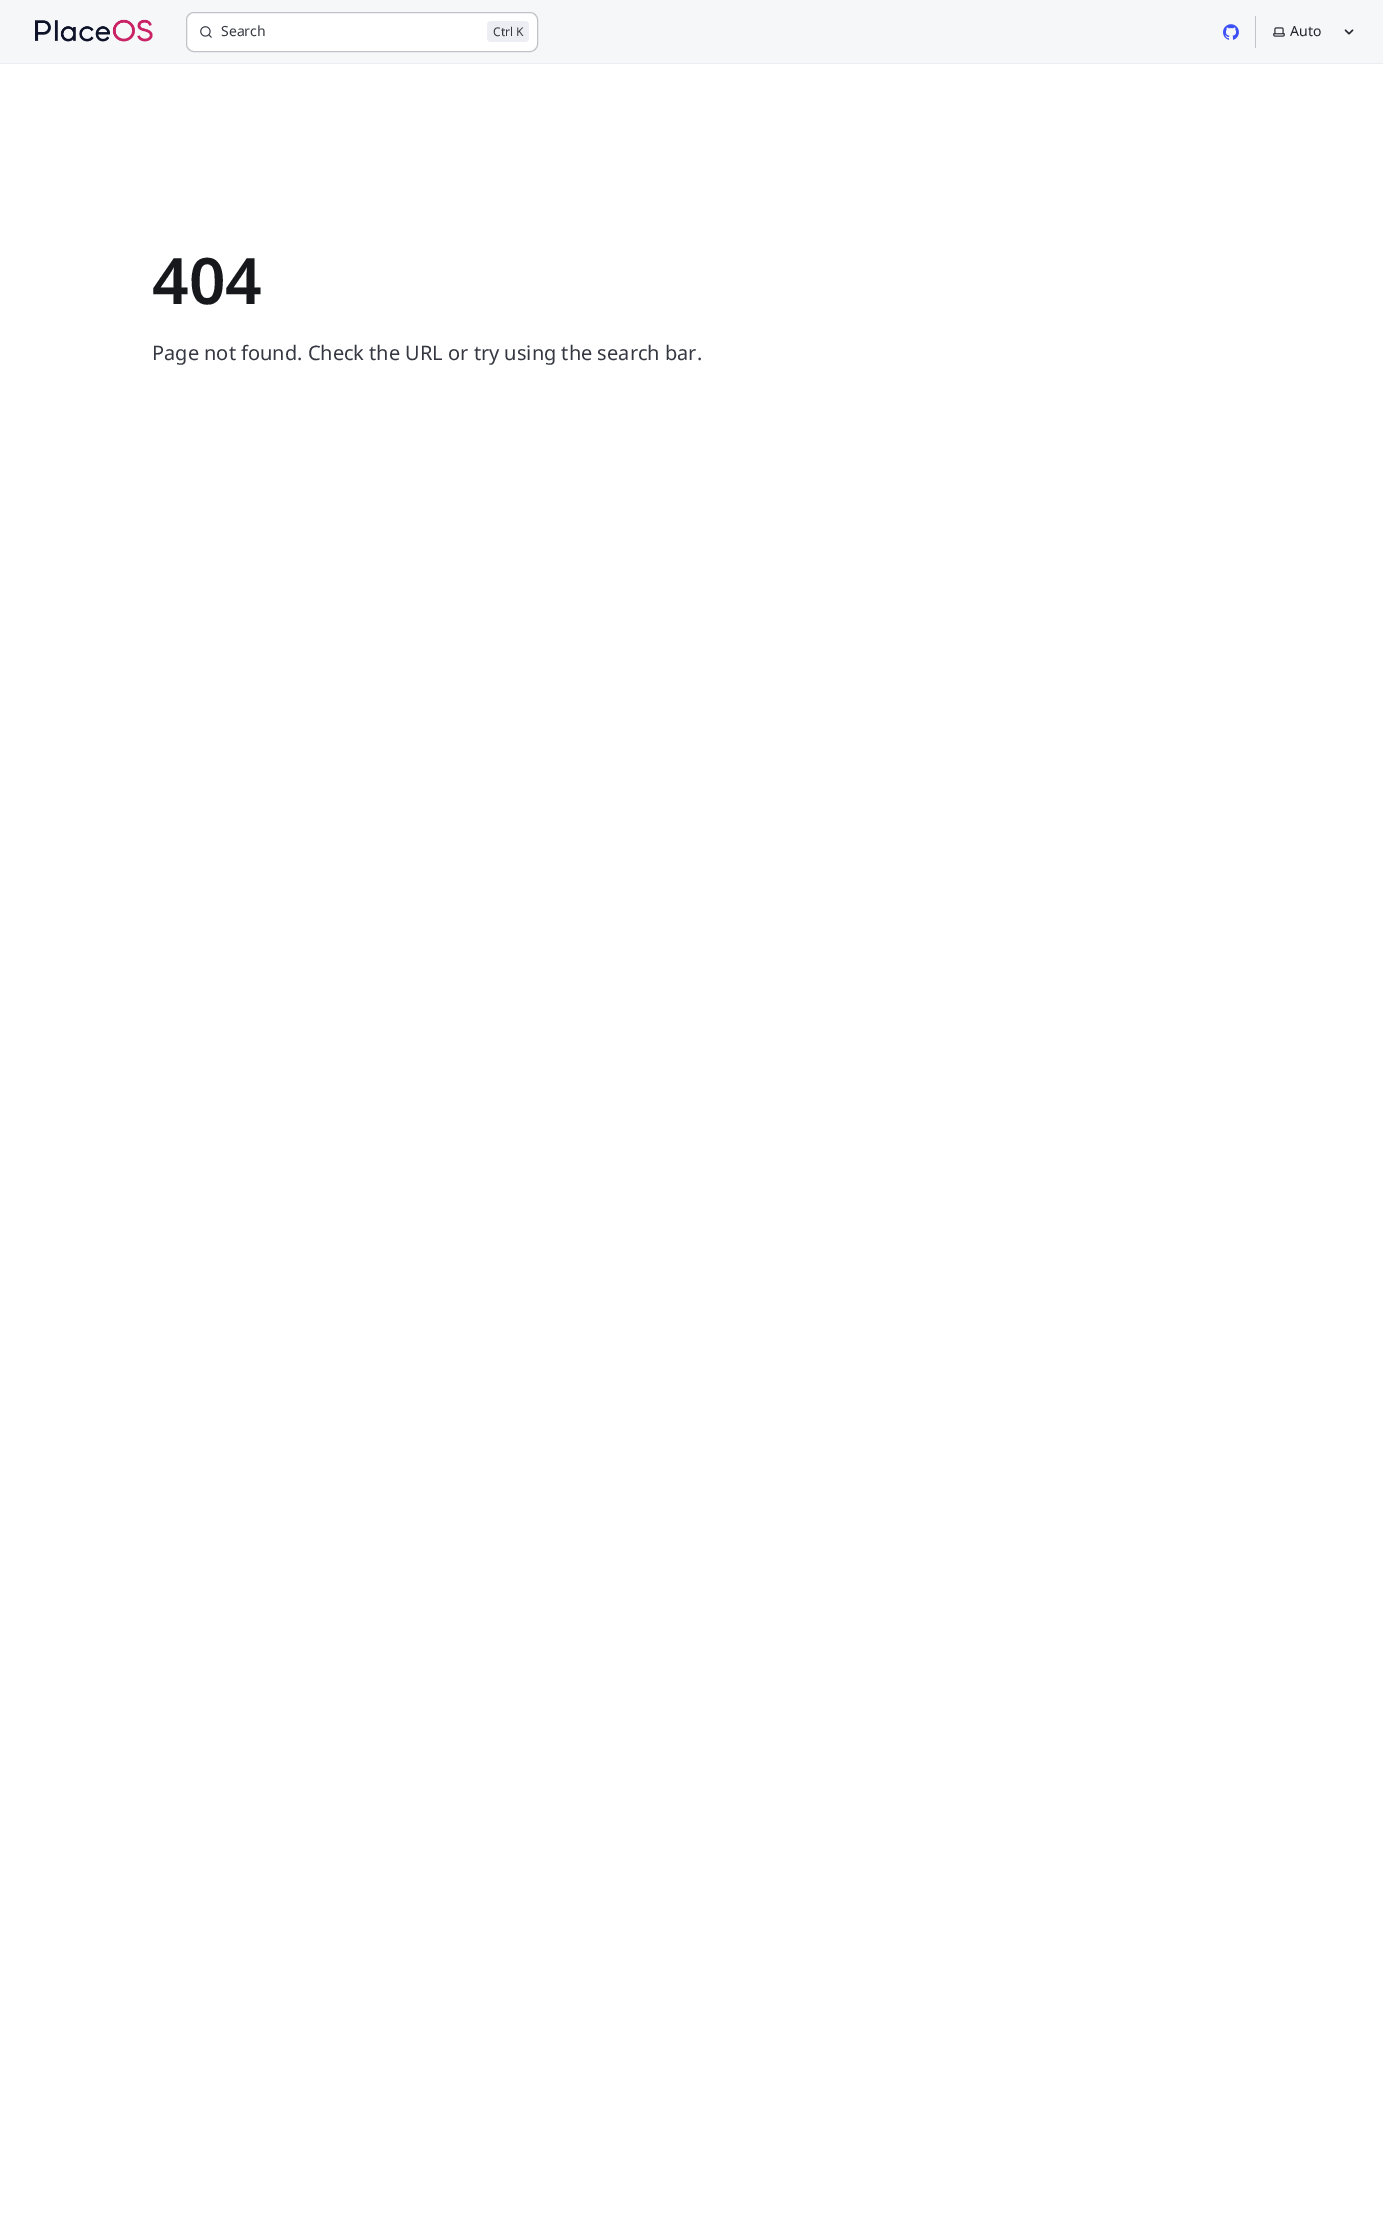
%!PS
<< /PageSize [1383 2221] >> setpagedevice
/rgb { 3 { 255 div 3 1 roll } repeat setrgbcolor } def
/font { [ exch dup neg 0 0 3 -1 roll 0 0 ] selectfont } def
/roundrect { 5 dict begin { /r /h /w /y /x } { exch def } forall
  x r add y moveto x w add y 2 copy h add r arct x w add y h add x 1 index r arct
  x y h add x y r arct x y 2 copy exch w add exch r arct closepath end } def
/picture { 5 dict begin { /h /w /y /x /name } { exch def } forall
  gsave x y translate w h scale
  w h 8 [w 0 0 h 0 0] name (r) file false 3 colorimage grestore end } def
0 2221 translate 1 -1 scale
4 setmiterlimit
255 255 255 rgb
0 0 1383 2221 rectfill
246 247 249 rgb
0 0 1383 63 rectfill
237 238 243 rgb
0 63 1383 1 rectfill
(img/1.rgb) 35 19 118 23 picture
255 255 255 rgb
186.5 12.5 351 39 7.5 roundrect gsave fill grestore
193 195 200 rgb
stroke
(img/2.rgb) 200 26 12 12 picture
237 238 243 rgb
487 21 42 21 4 roundrect fill
(img/3.rgb) 1223 24 16 16 picture
193 195 200 rgb
1255 16 1 32 rectfill
(img/4.rgb) 1273 27 12 10 picture
(img/5.rgb) 1344 29 10 6 picture
/NotoSans-Regular 14 font
53 56 65 rgb
221 36 moveto (Search) show
/NotoSans-Regular 12 font
493 36 moveto (Ctrl K) show
/NotoSans-Regular 14 font
35 38 47 rgb
1290 36 moveto (Auto) show
/NotoSans-SemiBold 64 font
23 24 28 rgb
152 304 moveto (404) show
/NotoSans-Regular 20 font
53 56 65 rgb
152 360 moveto (Page not found. Check the URL or try using the search bar.) show
showpage
